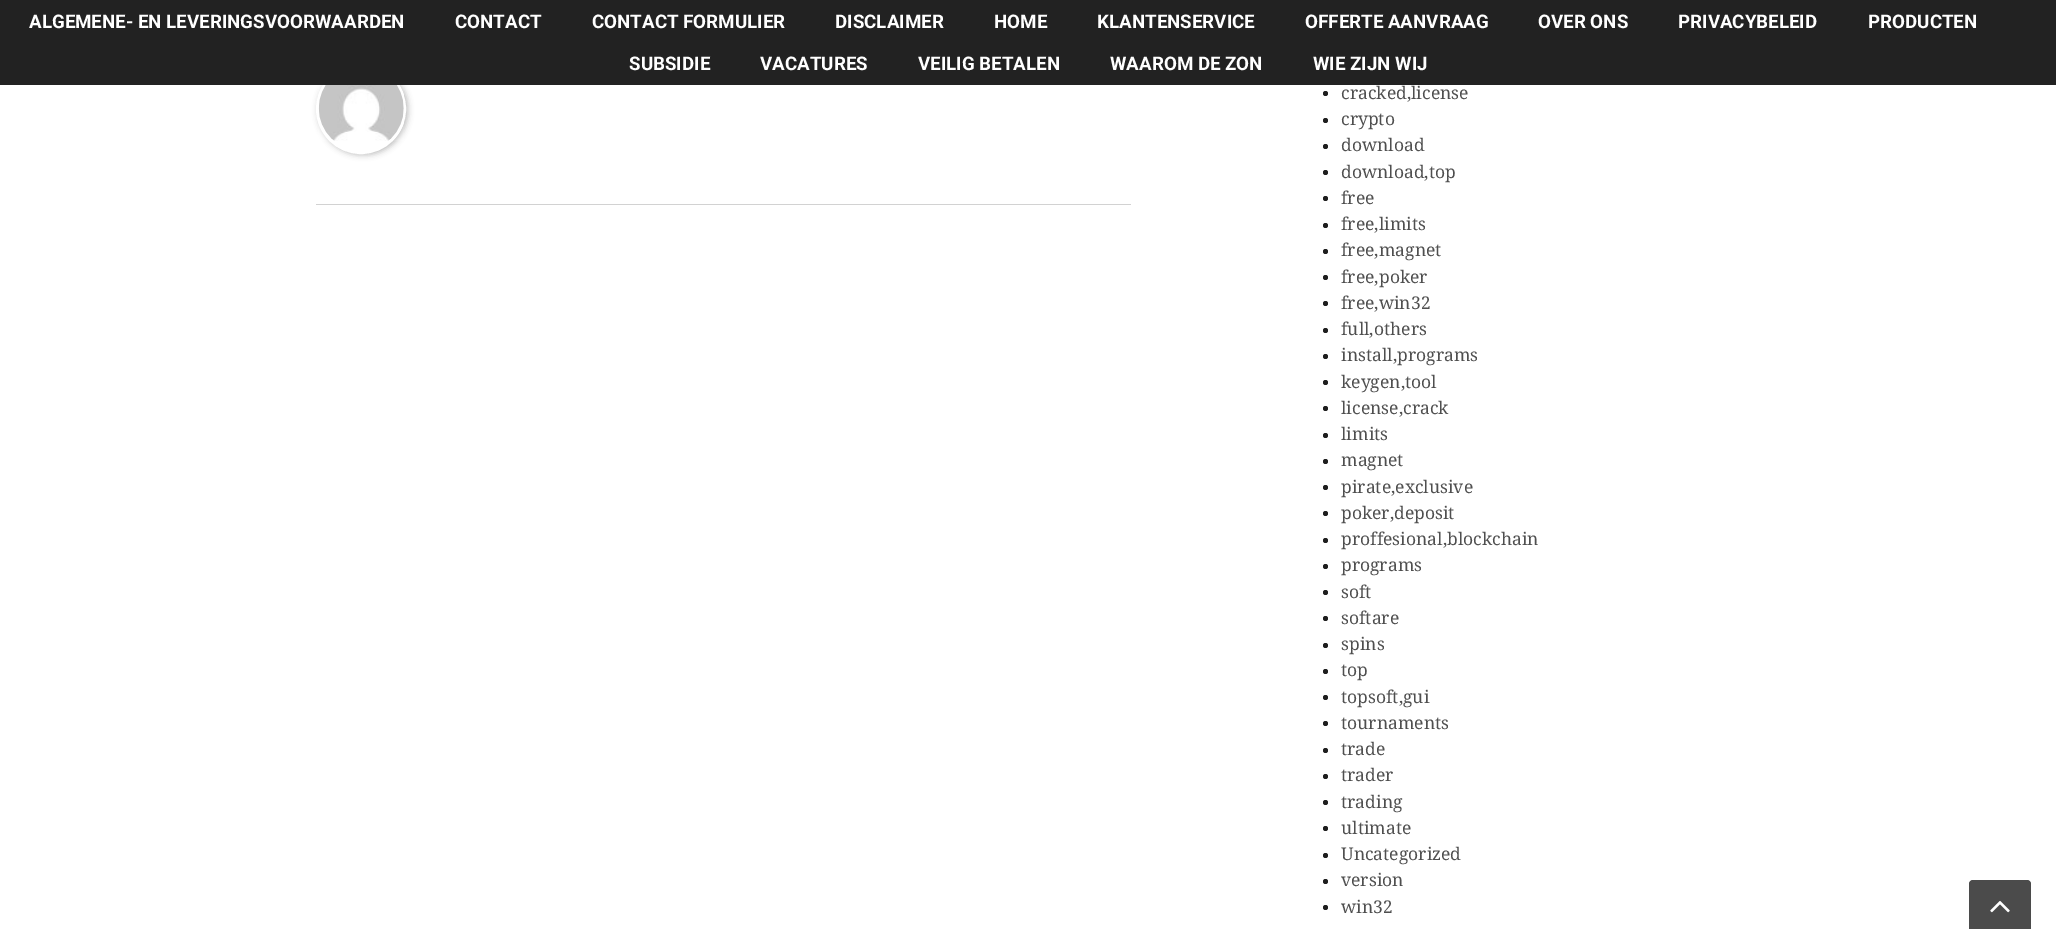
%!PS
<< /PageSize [2056 929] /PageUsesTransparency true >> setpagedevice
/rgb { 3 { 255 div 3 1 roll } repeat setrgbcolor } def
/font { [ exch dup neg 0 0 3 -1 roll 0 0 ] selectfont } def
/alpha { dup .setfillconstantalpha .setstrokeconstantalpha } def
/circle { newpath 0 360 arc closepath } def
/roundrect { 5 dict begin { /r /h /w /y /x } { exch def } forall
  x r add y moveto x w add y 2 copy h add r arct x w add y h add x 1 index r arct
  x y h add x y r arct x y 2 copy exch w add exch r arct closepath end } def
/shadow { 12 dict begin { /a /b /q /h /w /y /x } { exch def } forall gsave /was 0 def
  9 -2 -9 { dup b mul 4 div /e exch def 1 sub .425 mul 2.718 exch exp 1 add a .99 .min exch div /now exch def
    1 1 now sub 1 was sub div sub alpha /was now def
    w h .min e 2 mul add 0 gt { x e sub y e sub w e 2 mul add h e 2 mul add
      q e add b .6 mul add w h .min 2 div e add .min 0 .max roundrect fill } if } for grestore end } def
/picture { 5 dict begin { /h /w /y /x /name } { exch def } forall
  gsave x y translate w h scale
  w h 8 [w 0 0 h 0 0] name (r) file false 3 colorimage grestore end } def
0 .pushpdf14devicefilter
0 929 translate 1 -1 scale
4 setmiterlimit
255 255 255 rgb
0 0 2056 929 rectfill
gsave
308 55 moveto 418 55 lineto 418 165 lineto 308 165 lineto closepath 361 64 moveto 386 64 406 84 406 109 curveto 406 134 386 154 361 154 curveto 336 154 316 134 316 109 curveto 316 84 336 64 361 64 curveto closepath eoclip newpath
0 0 0 rgb
318 65 90 90 45 3 0.25 shadow
grestore
3 setlinewidth
361 109 43.5 circle stroke
34 34 34 rgb
0 0 2056 85 rectfill
210 210 210 rgb
316 204 815 1 rectfill
(img/1.rgb) 318 85 86 56 picture
30 30 30 rgb
1325.5 93.5 2.5 circle fill
1325.5 120.5 2.5 circle fill
1325.5 146.5 2.5 circle fill
1325.5 172.5 2.5 circle fill
1325.5 198.5 2.5 circle fill
1325.5 225.5 2.5 circle fill
1325.5 251.5 2.5 circle fill
1325.5 277.5 2.5 circle fill
1325.5 303.5 2.5 circle fill
1325.5 330.5 2.5 circle fill
1325.5 356.5 2.5 circle fill
1325.5 382.5 2.5 circle fill
1325.5 408.5 2.5 circle fill
1325.5 435.5 2.5 circle fill
1325.5 461.5 2.5 circle fill
1325.5 487.5 2.5 circle fill
1325.5 513.5 2.5 circle fill
1325.5 540.5 2.5 circle fill
1325.5 566.5 2.5 circle fill
1325.5 592.5 2.5 circle fill
1325.5 618.5 2.5 circle fill
1325.5 645.5 2.5 circle fill
1325.5 671.5 2.5 circle fill
1325.5 697.5 2.5 circle fill
1325.5 723.5 2.5 circle fill
1325.5 750.5 2.5 circle fill
1325.5 776.5 2.5 circle fill
1325.5 802.5 2.5 circle fill
1325.5 828.5 2.5 circle fill
1325.5 855.5 2.5 circle fill
1325.5 881.5 2.5 circle fill
1325.5 907.5 2.5 circle fill
75 75 75 rgb
1969 880 62 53 4 roundrect fill
(img/2.rgb) 1990 901 20 12 picture
/Roboto-Bold 18.75 font
255 255 255 rgb
[
  [(ALGEMENE- EN LEVERINGSVOORWAARDEN) 29 28]
  [(CONTACT) 455 28]
  [(CONTACT FORMULIER) 592 28]
  [(DISCLAIMER) 835 28]
  [(HOME) 994 28]
  [(KLANTENSERVICE) 1097 28]
  [(OFFERTE AANVRAAG) 1305 28]
  [(OVER ONS) 1538 28]
  [(PRIVACYBELEID) 1678 28]
  [(PRODUCTEN) 1868 28]
  [(SUBSIDIE) 629 70]
  [(VACATURES) 760 70]
  [(VEILIG BETALEN) 918 70]
  [(WAAROM DE ZON) 1110 70]
  [(WIE ZIJN WIJ) 1313 70]
] { aload pop moveto show } forall
/DroidSerif-Regular 17.5 font
79 79 79 rgb
[
  [(cracked,license) 1341 99]
  [(crypto) 1341 125]
  [(download) 1341 151]
  [(download,top) 1341 178]
  [(free) 1341 204]
  [(free,limits) 1341 230]
  [(free,magnet) 1341 256]
  [(free,poker) 1341 283]
  [(free,win32) 1341 309]
  [(full,others) 1341 335]
  [(install,programs) 1341 361]
  [(keygen,tool) 1341 388]
  [(license,crack) 1341 414]
  [(limits) 1341 440]
  [(magnet) 1341 466]
  [(pirate,exclusive) 1341 493]
  [(poker,deposit) 1341 519]
  [(proffesional,blockchain) 1341 545]
  [(programs) 1341 571]
  [(soft) 1341 598]
  [(softare) 1341 624]
  [(spins) 1341 650]
  [(top) 1341 676]
  [(topsoft,gui) 1341 703]
  [(tournaments) 1341 729]
  [(trade) 1341 755]
  [(trader) 1341 781]
  [(trading) 1341 808]
  [(ultimate) 1341 834]
  [(Uncategorized) 1341 860]
  [(version) 1341 886]
  [(win32) 1341 913]
] { aload pop moveto show } forall
.poppdf14devicefilter showpage
